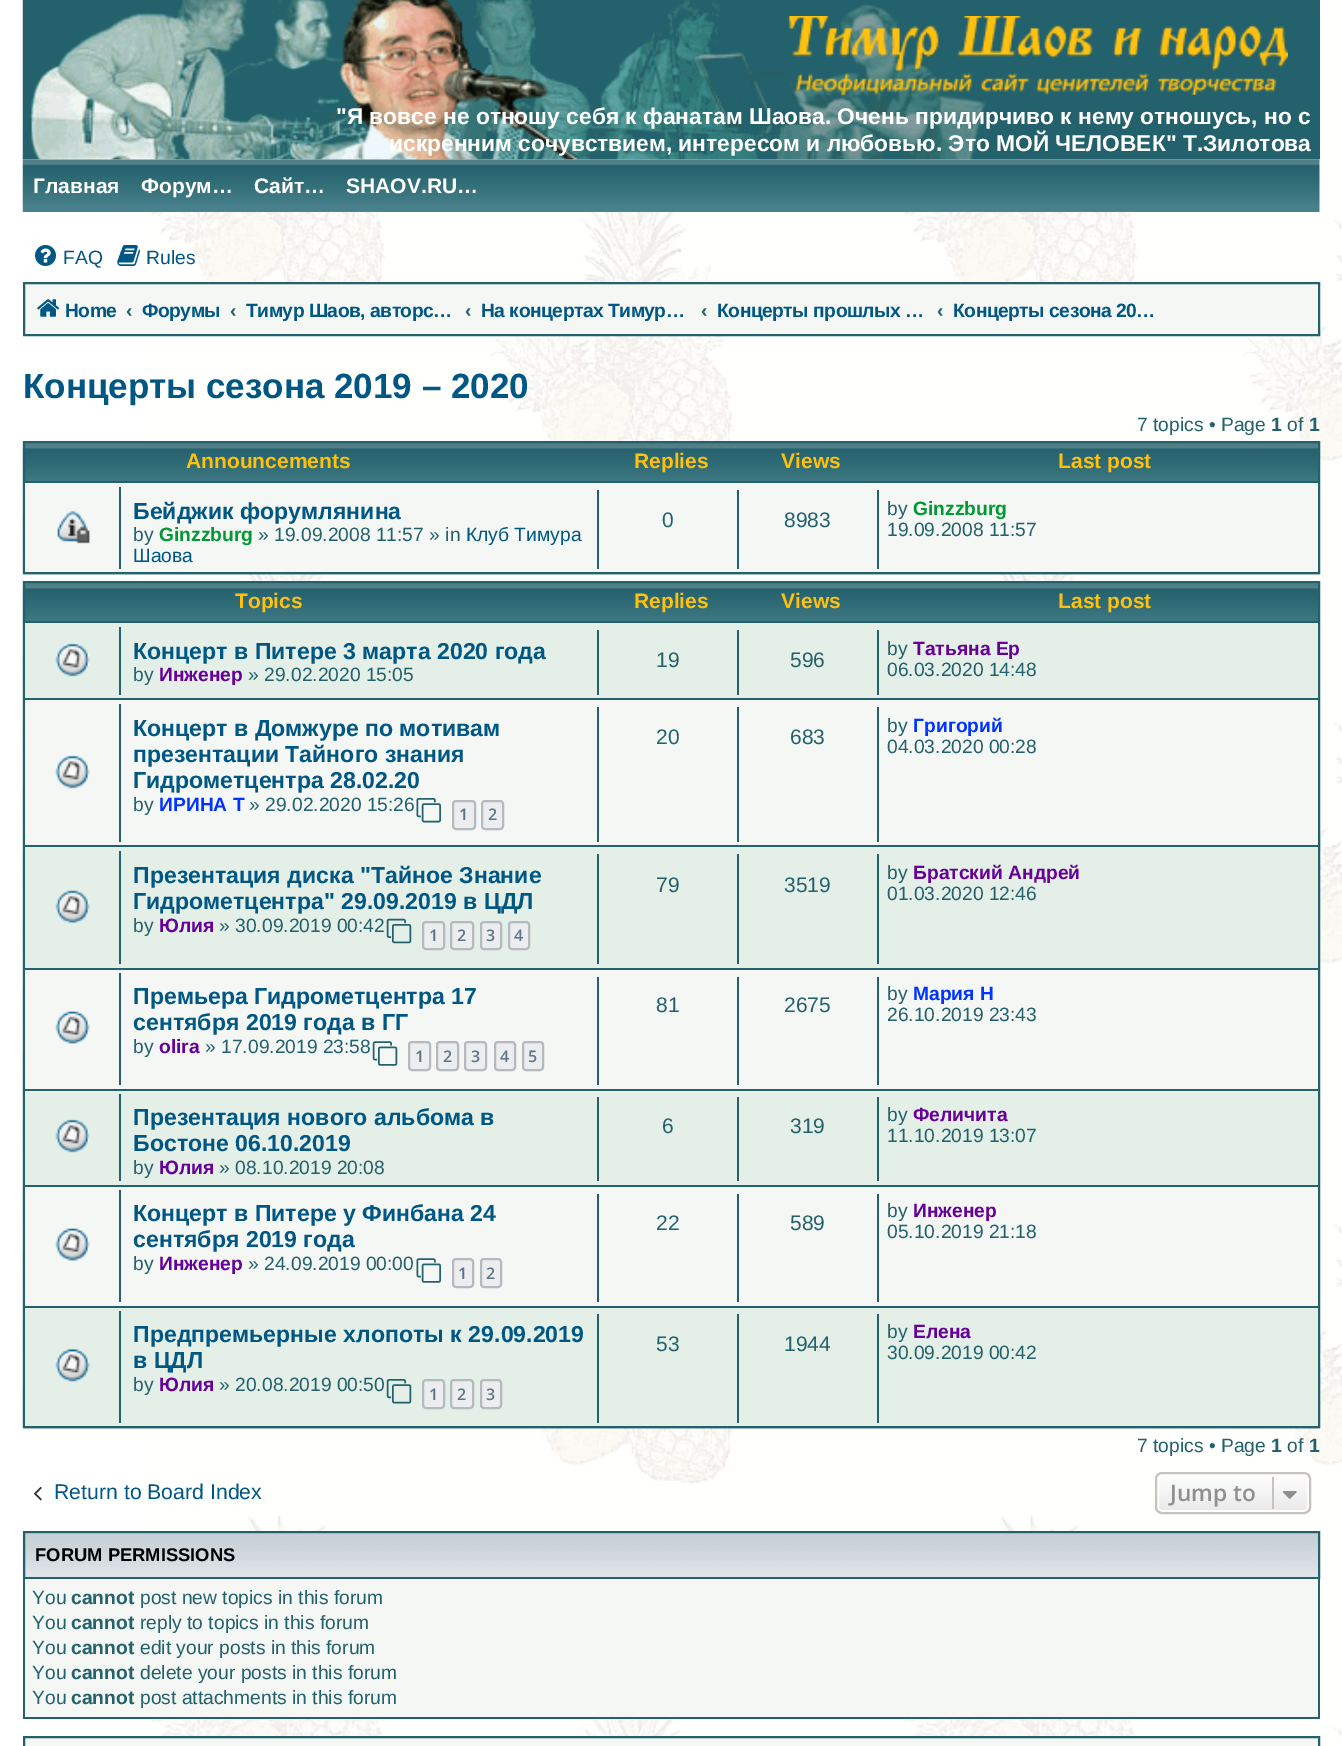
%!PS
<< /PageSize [1342 1746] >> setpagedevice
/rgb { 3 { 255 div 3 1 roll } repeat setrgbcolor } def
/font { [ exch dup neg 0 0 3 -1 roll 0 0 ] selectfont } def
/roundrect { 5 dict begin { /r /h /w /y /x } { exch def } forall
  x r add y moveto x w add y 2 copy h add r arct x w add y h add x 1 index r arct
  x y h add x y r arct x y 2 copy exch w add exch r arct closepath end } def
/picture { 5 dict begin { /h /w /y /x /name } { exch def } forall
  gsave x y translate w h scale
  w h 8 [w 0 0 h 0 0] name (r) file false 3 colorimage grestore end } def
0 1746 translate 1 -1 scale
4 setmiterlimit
255 255 255 rgb
0 0 1342 1746 rectfill
(img/1.rgb) 142 8 1200 1738 picture
35 97 108 rgb
1319 0 1 159 rectfill
(img/2.rgb) 22 0 1298 160 picture
(img/3.rgb) 788 16 500 79 picture
(img/4.rgb) 22 159 1298 53 picture
(img/5.rgb) 35 245 21 21 picture
(img/6.rgb) 117 245 23 21 picture
244 247 244 rgb
24 283 moveto 1319 283 lineto 1319 335 lineto 24 335 lineto closepath gsave fill grestore
35 97 108 rgb
2 setlinewidth
stroke
(img/7.rgb) 37 299 23 18 picture
(img/8.rgb) 22 441 1298 134 picture
24 442 1295 131 rectstroke
244 247 244 rgb
25 483 1293 89 rectfill
35 97 108 rgb
25 481 1293 2 rectfill
(img/9.rgb) 57 510 33 34 picture
[
  [119 487 2 82 35 97 108]
  [597 490 2 79 35 97 108]
  [737 490 2 79 35 97 108]
  [877 490 2 79 35 97 108]
] { aload pop rgb rectfill } forall
(img/10.rgb) 22 581 1298 848 picture
24 582 1295 845 rectstroke
[
  [25 700 1293 606 244 247 244]
  [25 623 1293 75 228 239 231]
  [25 621 1293 2 35 97 108]
] { aload pop rgb rectfill } forall
(img/11.rgb) 55 643 35 34 picture
[
  [119 627 2 68 35 97 108]
  [597 630 2 65 35 97 108]
  [737 630 2 65 35 97 108]
  [877 630 2 65 35 97 108]
  [25 698 1293 2 35 97 108]
] { aload pop rgb rectfill } forall
(img/12.rgb) 55 755 35 34 picture
119 704 2 138 rectfill
(img/13.rgb) 416 798 25 25 picture
236 237 238 rgb
453 801 22 28 3 roundrect gsave fill grestore
180 186 192 rgb
stroke
236 237 238 rgb
482 801 21 28 3 roundrect gsave fill grestore
180 186 192 rgb
stroke
[
  [597 707 2 135 35 97 108]
  [737 707 2 135 35 97 108]
  [877 707 2 135 35 97 108]
  [25 847 1293 121 228 239 231]
  [25 845 1293 2 35 97 108]
] { aload pop rgb rectfill } forall
(img/14.rgb) 55 890 35 33 picture
119 851 2 113 rectfill
(img/15.rgb) 386 918 26 26 picture
236 237 238 rgb
423 922 21 27 3 roundrect gsave fill grestore
180 186 192 rgb
stroke
236 237 238 rgb
451 922 22 27 3 roundrect gsave fill grestore
180 186 192 rgb
stroke
236 237 238 rgb
481 922 20 27 3 roundrect gsave fill grestore
180 186 192 rgb
stroke
236 237 238 rgb
509 922 20 27 3 roundrect gsave fill grestore
180 186 192 rgb
stroke
[
  [597 854 2 110 35 97 108]
  [737 854 2 110 35 97 108]
  [877 854 2 110 35 97 108]
  [25 968 1293 2 35 97 108]
] { aload pop rgb rectfill } forall
(img/16.rgb) 55 1011 35 33 picture
119 973 2 112 rectfill
(img/17.rgb) 372 1041 26 25 picture
236 237 238 rgb
409 1042 21 28 3 roundrect gsave fill grestore
180 186 192 rgb
stroke
236 237 238 rgb
437 1042 21 28 3 roundrect gsave fill grestore
180 186 192 rgb
stroke
236 237 238 rgb
465 1042 21 28 3 roundrect gsave fill grestore
180 186 192 rgb
stroke
236 237 238 rgb
495 1042 20 28 3 roundrect gsave fill grestore
180 186 192 rgb
stroke
236 237 238 rgb
523 1042 20 28 3 roundrect gsave fill grestore
180 186 192 rgb
stroke
[
  [597 977 2 108 35 97 108]
  [737 977 2 108 35 97 108]
  [877 977 2 108 35 97 108]
  [25 1091 1293 94 228 239 231]
  [25 1089 1293 2 35 97 108]
] { aload pop rgb rectfill } forall
(img/11.rgb) 55 1119 35 34 picture
[
  [119 1094 2 87 35 97 108]
  [597 1097 2 84 35 97 108]
  [737 1097 2 84 35 97 108]
  [877 1097 2 84 35 97 108]
  [25 1185 1293 2 35 97 108]
] { aload pop rgb rectfill } forall
(img/18.rgb) 55 1228 35 33 picture
119 1190 2 112 rectfill
(img/19.rgb) 416 1258 25 25 picture
236 237 238 rgb
453 1259 20 28 3 roundrect gsave fill grestore
180 186 192 rgb
stroke
236 237 238 rgb
481 1259 20 28 3 roundrect gsave fill grestore
180 186 192 rgb
stroke
[
  [597 1194 2 108 35 97 108]
  [737 1194 2 108 35 97 108]
  [877 1194 2 108 35 97 108]
  [25 1308 1293 118 228 239 231]
  [25 1306 1293 2 35 97 108]
] { aload pop rgb rectfill } forall
(img/20.rgb) 55 1349 35 33 picture
119 1311 2 112 rectfill
(img/21.rgb) 386 1379 26 25 picture
236 237 238 rgb
423 1380 21 28 3 roundrect gsave fill grestore
180 186 192 rgb
stroke
236 237 238 rgb
451 1380 22 28 3 roundrect gsave fill grestore
180 186 192 rgb
stroke
236 237 238 rgb
481 1380 20 28 3 roundrect gsave fill grestore
180 186 192 rgb
stroke
[
  [597 1314 2 109 35 97 108]
  [737 1314 2 109 35 97 108]
  [877 1314 2 109 35 97 108]
] { aload pop rgb rectfill } forall
(img/22.rgb) 33 1486 9 15 picture
gsave
1155 1472 156 42 7 roundrect clip newpath
gsave 1155 1474 moveto 1311 1474 lineto 1311 1512 lineto 1155 1512 lineto closepath clip newpath
<< /ShadingType 2 /ColorSpace /DeviceRGB /Coords [1233 1474 1233 1512] /Extend [true true] /Function << /FunctionType 2 /Domain [0 1] /C0 [1 1 1] /C1 [0.914 0.914 0.914] /N 1 >> >> shfill grestore
grestore
255 255 255 rgb
1158 1475 150 36 4 roundrect stroke
199 195 191 rgb
1156 1473 154 40 6 roundrect stroke
1272 1477 2 32 rectfill
(img/23.rgb) 1282 1491 15 8 picture
(img/24.rgb) 22 1531 1296 48 picture
35 97 108 rgb
24 1532 1295 46 rectstroke
[
  [25 1579 1293 138 244 247 244]
  [1318 1579 2 140 35 97 108]
  [23 1717 1297 2 35 97 108]
  [23 1579 2 140 35 97 108]
] { aload pop rgb rectfill } forall
244 247 244 rgb
24 1737 moveto 1319 1737 lineto 1319 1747 lineto 24 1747 lineto closepath gsave fill grestore
35 97 108 rgb
stroke
/LiberationSans-Bold 22.75 font
255 255 255 rgb
336 124 moveto ("Я вовсе не отношу себя к фанатам Шаова. Очень придирчиво к нему отношусь, но с) show
389 151 moveto (искренним сочувствием, интересом и любовью. Это МОЙ ЧЕЛОВЕК" Т.Зилотова) show
/LiberationSans-Bold 21 font
[
  [(Главная) 33 193]
  [(Форум…) 141 193]
  [(Сайт…) 254 193]
  [(SHAOV.RU…) 346 193]
] { aload pop moveto show } forall
/LiberationSans-Regular 19.25 font
0 87 132 rgb
63 264 moveto (FAQ) show
146 264 moveto (Rules) show
/LiberationSans-Bold 19.25 font
65 317 moveto -0.5 0 (Home) ashow
35 97 108 rgb
126 317 moveto (‹) show
0 87 132 rgb
142 317 moveto -0.5 0 (Форумы) ashow
35 97 108 rgb
230 317 moveto (‹) show
0 87 132 rgb
246 317 moveto -0.5 0 (Тимур Шаов, авторс…) ashow
35 97 108 rgb
465 317 moveto (‹) show
0 87 132 rgb
481 317 moveto -0.5 0 (На концертах Тимур…) ashow
35 97 108 rgb
701 317 moveto (‹) show
0 87 132 rgb
717 317 moveto -0.5 0 (Концерты прошлых …) ashow
35 97 108 rgb
937 317 moveto (‹) show
0 87 132 rgb
953 317 moveto -0.5 0 (Концерты сезона 20…) ashow
/LiberationSans-Bold 35 font
23 398 moveto (Концерты сезона 2019 – 2020) show
/LiberationSans-Regular 19.25 font
35 97 108 rgb
1137 431 moveto (7 topics • Page) show
/LiberationSans-Bold 19.25 font
1271 431 moveto (1) show
/LiberationSans-Regular 19.25 font
1287 431 moveto (of) show
/LiberationSans-Bold 19.25 font
1309 431 moveto (1) show
/LiberationSans-Bold 21 font
255 192 14 rgb
[
  [(Announcements) 186 468]
  [(Replies) 634 468]
  [(Views) 781 468]
  [(Last post) 1058 468]
] { aload pop moveto show } forall
/LiberationSans-Bold 23.1 font
0 87 132 rgb
133 519 moveto (Бейджик форумлянина) show
/LiberationSans-Regular 19.25 font
35 97 108 rgb
133 541 moveto (by) show
/LiberationSans-Bold 19.25 font
0 153 51 rgb
159 541 moveto (Ginzzburg) show
/LiberationSans-Regular 19.25 font
35 97 108 rgb
258 541 moveto (» 19.09.2008 11:57 » in) show
0 87 132 rgb
466 541 moveto (Клуб Тимура) show
133 562 moveto (Шаова) show
/LiberationSans-Regular 21 font
35 97 108 rgb
662 527 moveto (0) show
784 527 moveto (8983) show
/LiberationSans-Regular 19.25 font
887 515 moveto (by) show
/LiberationSans-Bold 19.25 font
0 153 51 rgb
913 515 moveto (Ginzzburg) show
/LiberationSans-Regular 19.25 font
35 97 108 rgb
887 536 moveto (19.09.2008 11:57) show
/LiberationSans-Bold 21 font
255 192 14 rgb
[
  [(Topics) 235 608]
  [(Replies) 634 608]
  [(Views) 781 608]
  [(Last post) 1058 608]
] { aload pop moveto show } forall
/LiberationSans-Bold 23.1 font
0 87 132 rgb
133 659 moveto (Концерт в Питере 3 марта 2020 года) show
/LiberationSans-Regular 19.25 font
35 97 108 rgb
133 681 moveto (by) show
/LiberationSans-Bold 19.25 font
102 0 153 rgb
159 681 moveto (Инженер) show
/LiberationSans-Regular 19.25 font
35 97 108 rgb
248 681 moveto (» 29.02.2020 15:05) show
/LiberationSans-Regular 21 font
656 667 moveto (19) show
790 667 moveto (596) show
/LiberationSans-Regular 19.25 font
887 655 moveto (by) show
/LiberationSans-Bold 19.25 font
102 0 153 rgb
913 655 moveto (Татьяна Ер) show
/LiberationSans-Regular 19.25 font
35 97 108 rgb
887 676 moveto (06.03.2020 14:48) show
/LiberationSans-Bold 23.1 font
0 87 132 rgb
[
  [(Концерт в Домжуре по мотивам) 133 736]
  [(презентации Тайного знания) 133 762]
  [(Гидрометцентра 28.02.20) 133 788]
] { aload pop moveto show } forall
/LiberationSans-Regular 19.25 font
35 97 108 rgb
133 811 moveto (by) show
/LiberationSans-Bold 19.25 font
0 51 255 rgb
159 811 moveto (ИРИНА Т) show
/LiberationSans-Regular 19.25 font
35 97 108 rgb
249 811 moveto (» 29.02.2020 15:26) show
/OpenSans-SemiBold 16 font
92 117 140 rgb
459 820 moveto (1) show
488 820 moveto (2) show
/LiberationSans-Regular 21 font
35 97 108 rgb
656 744 moveto (20) show
790 744 moveto (683) show
/LiberationSans-Regular 19.25 font
887 732 moveto (by) show
/LiberationSans-Bold 19.25 font
0 51 255 rgb
913 732 moveto (Григорий) show
/LiberationSans-Regular 19.25 font
35 97 108 rgb
887 753 moveto (04.03.2020 00:28) show
/LiberationSans-Bold 23.1 font
0 87 132 rgb
133 883 moveto (Презентация диска "Тайное Знание) show
133 909 moveto (Гидрометцентра" 29.09.2019 в ЦДЛ) show
/LiberationSans-Regular 19.25 font
35 97 108 rgb
133 932 moveto (by) show
/LiberationSans-Bold 19.25 font
102 0 153 rgb
159 932 moveto (Юлия) show
/LiberationSans-Regular 19.25 font
35 97 108 rgb
219 932 moveto (» 30.09.2019 00:42) show
/OpenSans-SemiBold 16 font
92 117 140 rgb
[
  [(1) 429 941]
  [(2) 457 941]
  [(3) 486 941]
  [(4) 514 941]
] { aload pop moveto show } forall
/LiberationSans-Regular 21 font
35 97 108 rgb
656 892 moveto (79) show
784 892 moveto (3519) show
/LiberationSans-Regular 19.25 font
887 879 moveto (by) show
/LiberationSans-Bold 19.25 font
102 0 153 rgb
913 879 moveto (Братский Андрей) show
/LiberationSans-Regular 19.25 font
35 97 108 rgb
887 900 moveto (01.03.2020 12:46) show
/LiberationSans-Bold 23.1 font
0 87 132 rgb
133 1004 moveto (Премьера Гидрометцентра 17) show
133 1030 moveto (сентября 2019 года в ГГ) show
/LiberationSans-Regular 19.25 font
35 97 108 rgb
133 1053 moveto (by) show
/LiberationSans-Bold 19.25 font
102 0 153 rgb
159 1053 moveto (olira) show
/LiberationSans-Regular 19.25 font
35 97 108 rgb
205 1053 moveto (» 17.09.2019 23:58) show
/OpenSans-SemiBold 16 font
92 117 140 rgb
[
  [(1) 415 1062]
  [(2) 443 1062]
  [(3) 471 1062]
  [(4) 500 1062]
  [(5) 528 1062]
] { aload pop moveto show } forall
/LiberationSans-Regular 21 font
35 97 108 rgb
656 1012 moveto (81) show
784 1012 moveto (2675) show
/LiberationSans-Regular 19.25 font
887 1000 moveto (by) show
/LiberationSans-Bold 19.25 font
0 51 255 rgb
913 1000 moveto (Мария Н) show
/LiberationSans-Regular 19.25 font
35 97 108 rgb
887 1021 moveto (26.10.2019 23:43) show
/LiberationSans-Bold 23.1 font
0 87 132 rgb
133 1125 moveto (Презентация нового альбома в) show
133 1151 moveto (Бостоне 06.10.2019) show
/LiberationSans-Regular 19.25 font
35 97 108 rgb
133 1174 moveto (by) show
/LiberationSans-Bold 19.25 font
102 0 153 rgb
159 1174 moveto (Юлия) show
/LiberationSans-Regular 19.25 font
35 97 108 rgb
219 1174 moveto (» 08.10.2019 20:08) show
/LiberationSans-Regular 21 font
662 1133 moveto (6) show
790 1133 moveto (319) show
/LiberationSans-Regular 19.25 font
887 1121 moveto (by) show
/LiberationSans-Bold 19.25 font
102 0 153 rgb
913 1121 moveto (Феличита) show
/LiberationSans-Regular 19.25 font
35 97 108 rgb
887 1142 moveto (11.10.2019 13:07) show
/LiberationSans-Bold 23.1 font
0 87 132 rgb
133 1221 moveto (Концерт в Питере у Финбана 24) show
133 1247 moveto (сентября 2019 года) show
/LiberationSans-Regular 19.25 font
35 97 108 rgb
133 1270 moveto (by) show
/LiberationSans-Bold 19.25 font
102 0 153 rgb
159 1270 moveto (Инженер) show
/LiberationSans-Regular 19.25 font
35 97 108 rgb
248 1270 moveto (» 24.09.2019 00:00) show
/OpenSans-SemiBold 16 font
92 117 140 rgb
458 1279 moveto (1) show
486 1279 moveto (2) show
/LiberationSans-Regular 21 font
35 97 108 rgb
656 1230 moveto (22) show
790 1230 moveto (589) show
/LiberationSans-Regular 19.25 font
887 1217 moveto (by) show
/LiberationSans-Bold 19.25 font
102 0 153 rgb
913 1217 moveto (Инженер) show
/LiberationSans-Regular 19.25 font
35 97 108 rgb
887 1238 moveto (05.10.2019 21:18) show
/LiberationSans-Bold 23.1 font
0 87 132 rgb
133 1342 moveto (Предпремьерные хлопоты к 29.09.2019) show
133 1368 moveto (в ЦДЛ) show
/LiberationSans-Regular 19.25 font
35 97 108 rgb
133 1391 moveto (by) show
/LiberationSans-Bold 19.25 font
102 0 153 rgb
159 1391 moveto (Юлия) show
/LiberationSans-Regular 19.25 font
35 97 108 rgb
219 1391 moveto (» 20.08.2019 00:50) show
/OpenSans-SemiBold 16 font
92 117 140 rgb
[
  [(1) 429 1400]
  [(2) 457 1400]
  [(3) 486 1400]
] { aload pop moveto show } forall
/LiberationSans-Regular 21 font
35 97 108 rgb
656 1351 moveto (53) show
784 1351 moveto (1944) show
/LiberationSans-Regular 19.25 font
887 1338 moveto (by) show
/LiberationSans-Bold 19.25 font
102 0 153 rgb
913 1338 moveto (Елена) show
/LiberationSans-Regular 19.25 font
35 97 108 rgb
887 1359 moveto (30.09.2019 00:42) show
1137 1452 moveto (7 topics • Page) show
/LiberationSans-Bold 19.25 font
1271 1452 moveto (1) show
/LiberationSans-Regular 19.25 font
1287 1452 moveto (of) show
/LiberationSans-Bold 19.25 font
1309 1452 moveto (1) show
/LiberationSans-Regular 21.25 font
0 87 132 rgb
54 1499 moveto (Return to Board Index) show
/OpenSans-SemiBold 22.75 font
143 143 143 rgb
1170 1501 moveto (Jump to) show
/LiberationSans-Bold 18.4 font
0 0 0 rgb
35 1561 moveto (FORUM PERMISSIONS) show
/LiberationSans-Regular 19.25 font
35 97 108 rgb
32 1604 moveto (You) show
/LiberationSans-Bold 19.25 font
71 1604 moveto (cannot) show
/LiberationSans-Regular 19.25 font
140 1604 moveto (post new topics in this forum) show
32 1629 moveto (You) show
/LiberationSans-Bold 19.25 font
71 1629 moveto (cannot) show
/LiberationSans-Regular 19.25 font
140 1629 moveto (reply to topics in this forum) show
32 1654 moveto (You) show
/LiberationSans-Bold 19.25 font
71 1654 moveto (cannot) show
/LiberationSans-Regular 19.25 font
140 1654 moveto (edit your posts in this forum) show
32 1679 moveto (You) show
/LiberationSans-Bold 19.25 font
71 1679 moveto (cannot) show
/LiberationSans-Regular 19.25 font
140 1679 moveto (delete your posts in this forum) show
32 1704 moveto (You) show
/LiberationSans-Bold 19.25 font
71 1704 moveto (cannot) show
/LiberationSans-Regular 19.25 font
140 1704 moveto (post attachments in this forum) show
showpage
